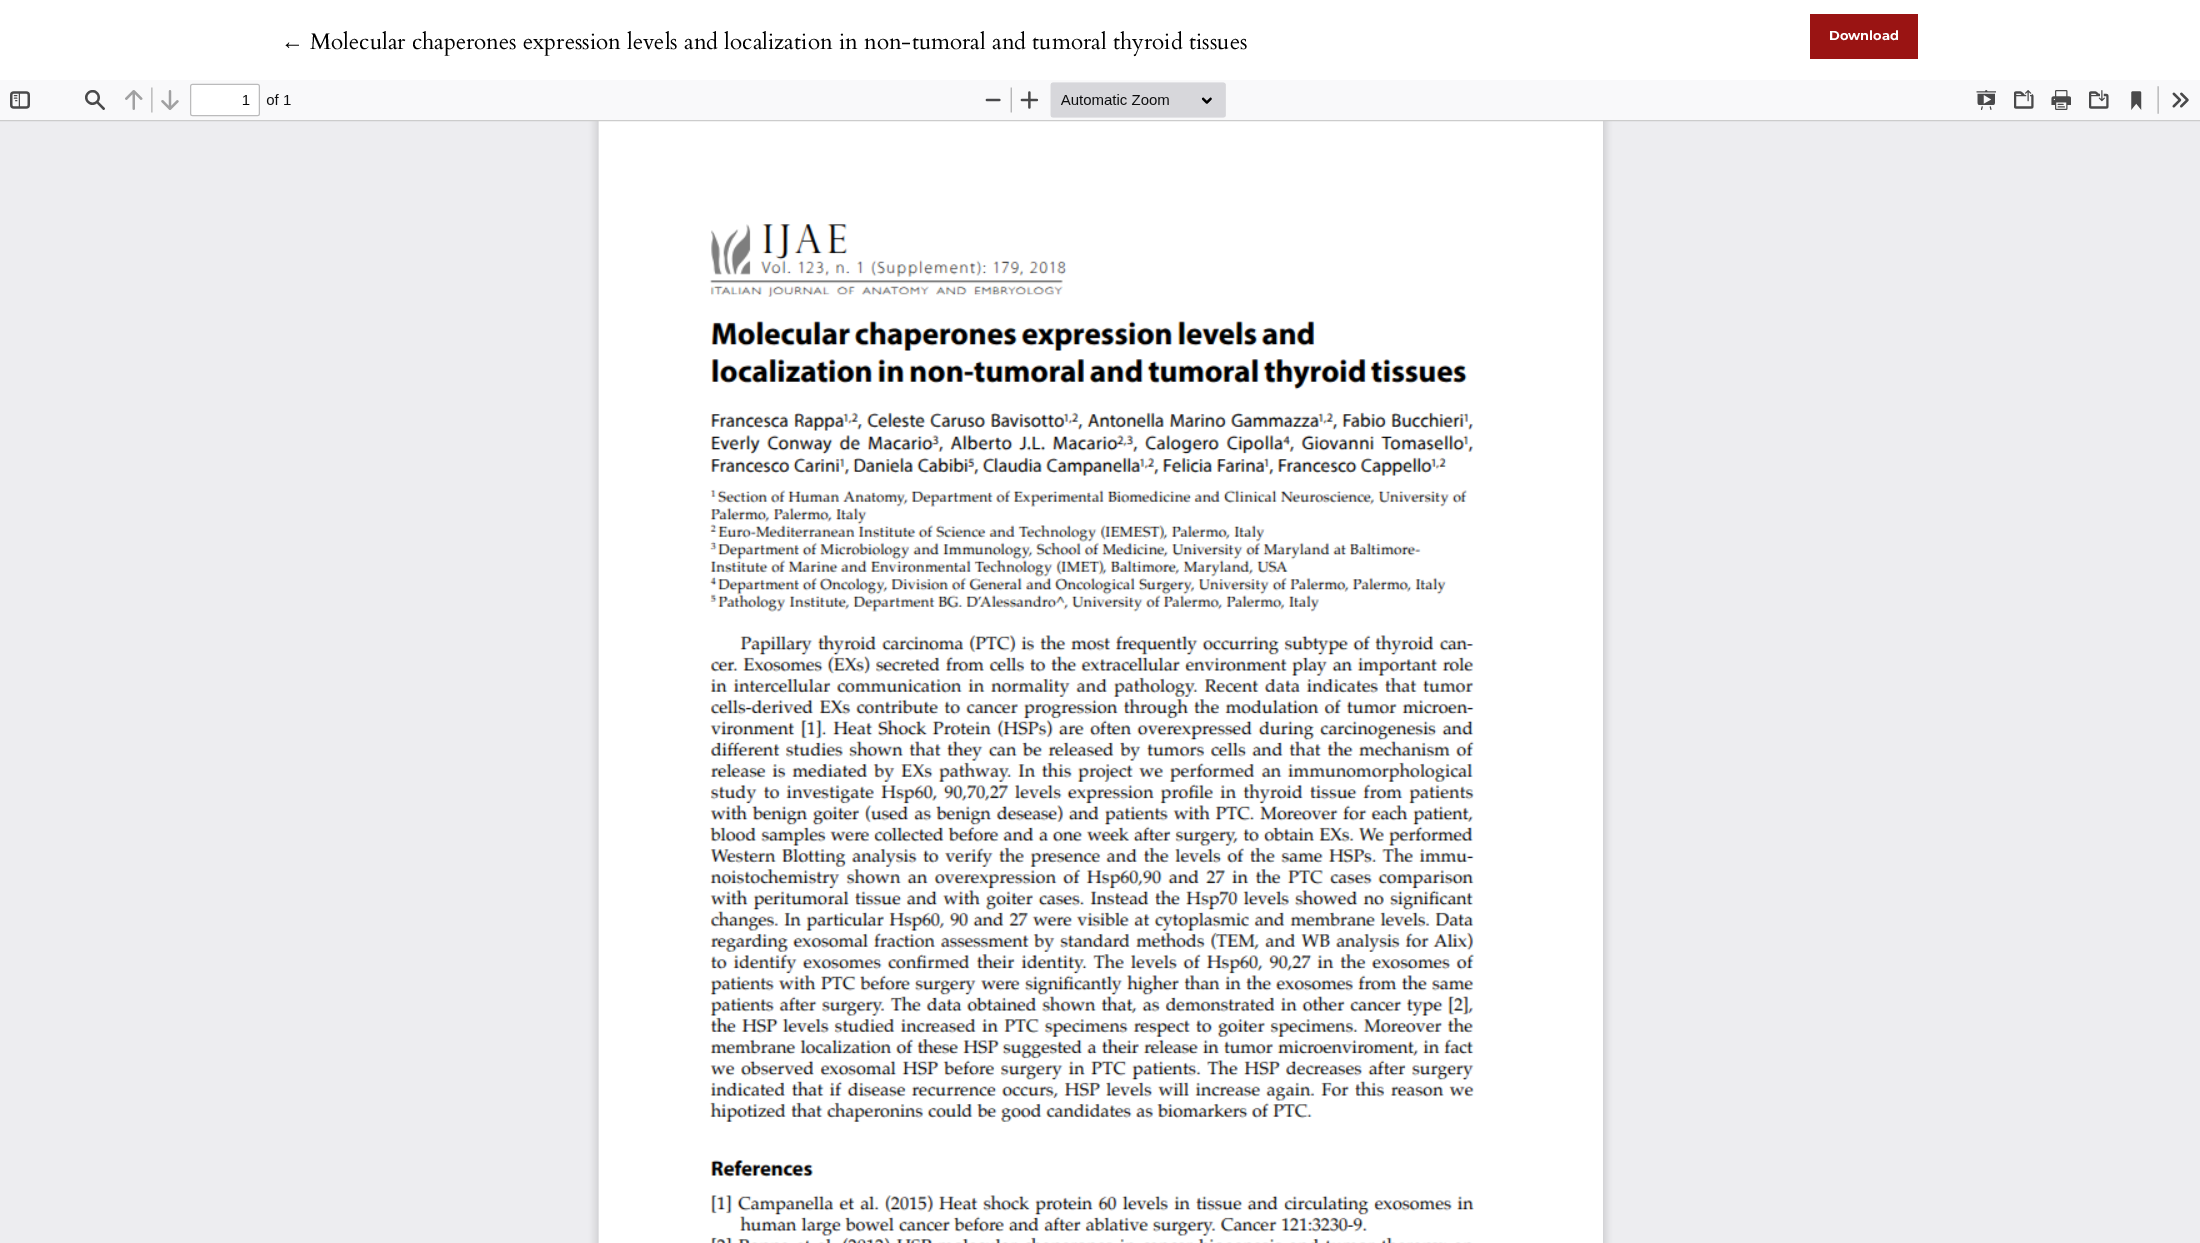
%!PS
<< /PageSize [2200 1243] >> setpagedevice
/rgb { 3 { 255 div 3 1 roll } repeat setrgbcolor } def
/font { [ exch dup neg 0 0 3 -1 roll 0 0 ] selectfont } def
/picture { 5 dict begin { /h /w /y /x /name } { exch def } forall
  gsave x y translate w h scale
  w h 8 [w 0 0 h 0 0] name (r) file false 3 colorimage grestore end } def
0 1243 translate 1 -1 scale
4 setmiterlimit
255 255 255 rgb
0 0 2200 1243 rectfill
154 20 19 rgb
1810 14 108 45 rectfill
(img/1.rgb) 0 80 2200 1163 picture
/LiberationSerif-Regular 22.5 font
0 0 0 rgb
281 49 moveto (←) show
/Cardo-Regular 22.5 font
310 49 moveto (Molecular chaperones expression levels and localization in non-tumoral and tumoral thyroid tissues) show
/Montserrat-Bold 13 font
255 255 255 rgb
1829 40 moveto (Download) show
showpage
